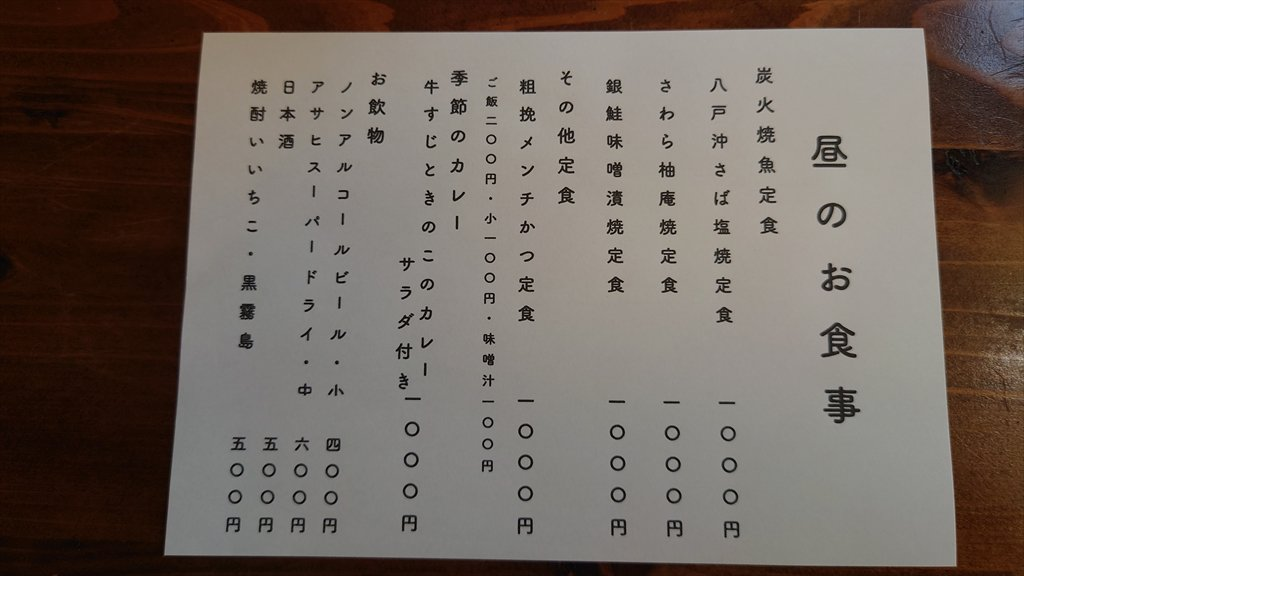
%!PS
<< /PageSize [1265 592] >> setpagedevice
/rgb { 3 { 255 div 3 1 roll } repeat setrgbcolor } def
/picture { 5 dict begin { /h /w /y /x /name } { exch def } forall
  gsave x y translate w h scale
  w h 8 [w 0 0 h 0 0] name (r) file false 3 colorimage grestore end } def
0 592 translate 1 -1 scale
4 setmiterlimit
255 255 255 rgb
0 0 1265 592 rectfill
(img/1.rgb) 0 0 1024 576 picture
showpage
